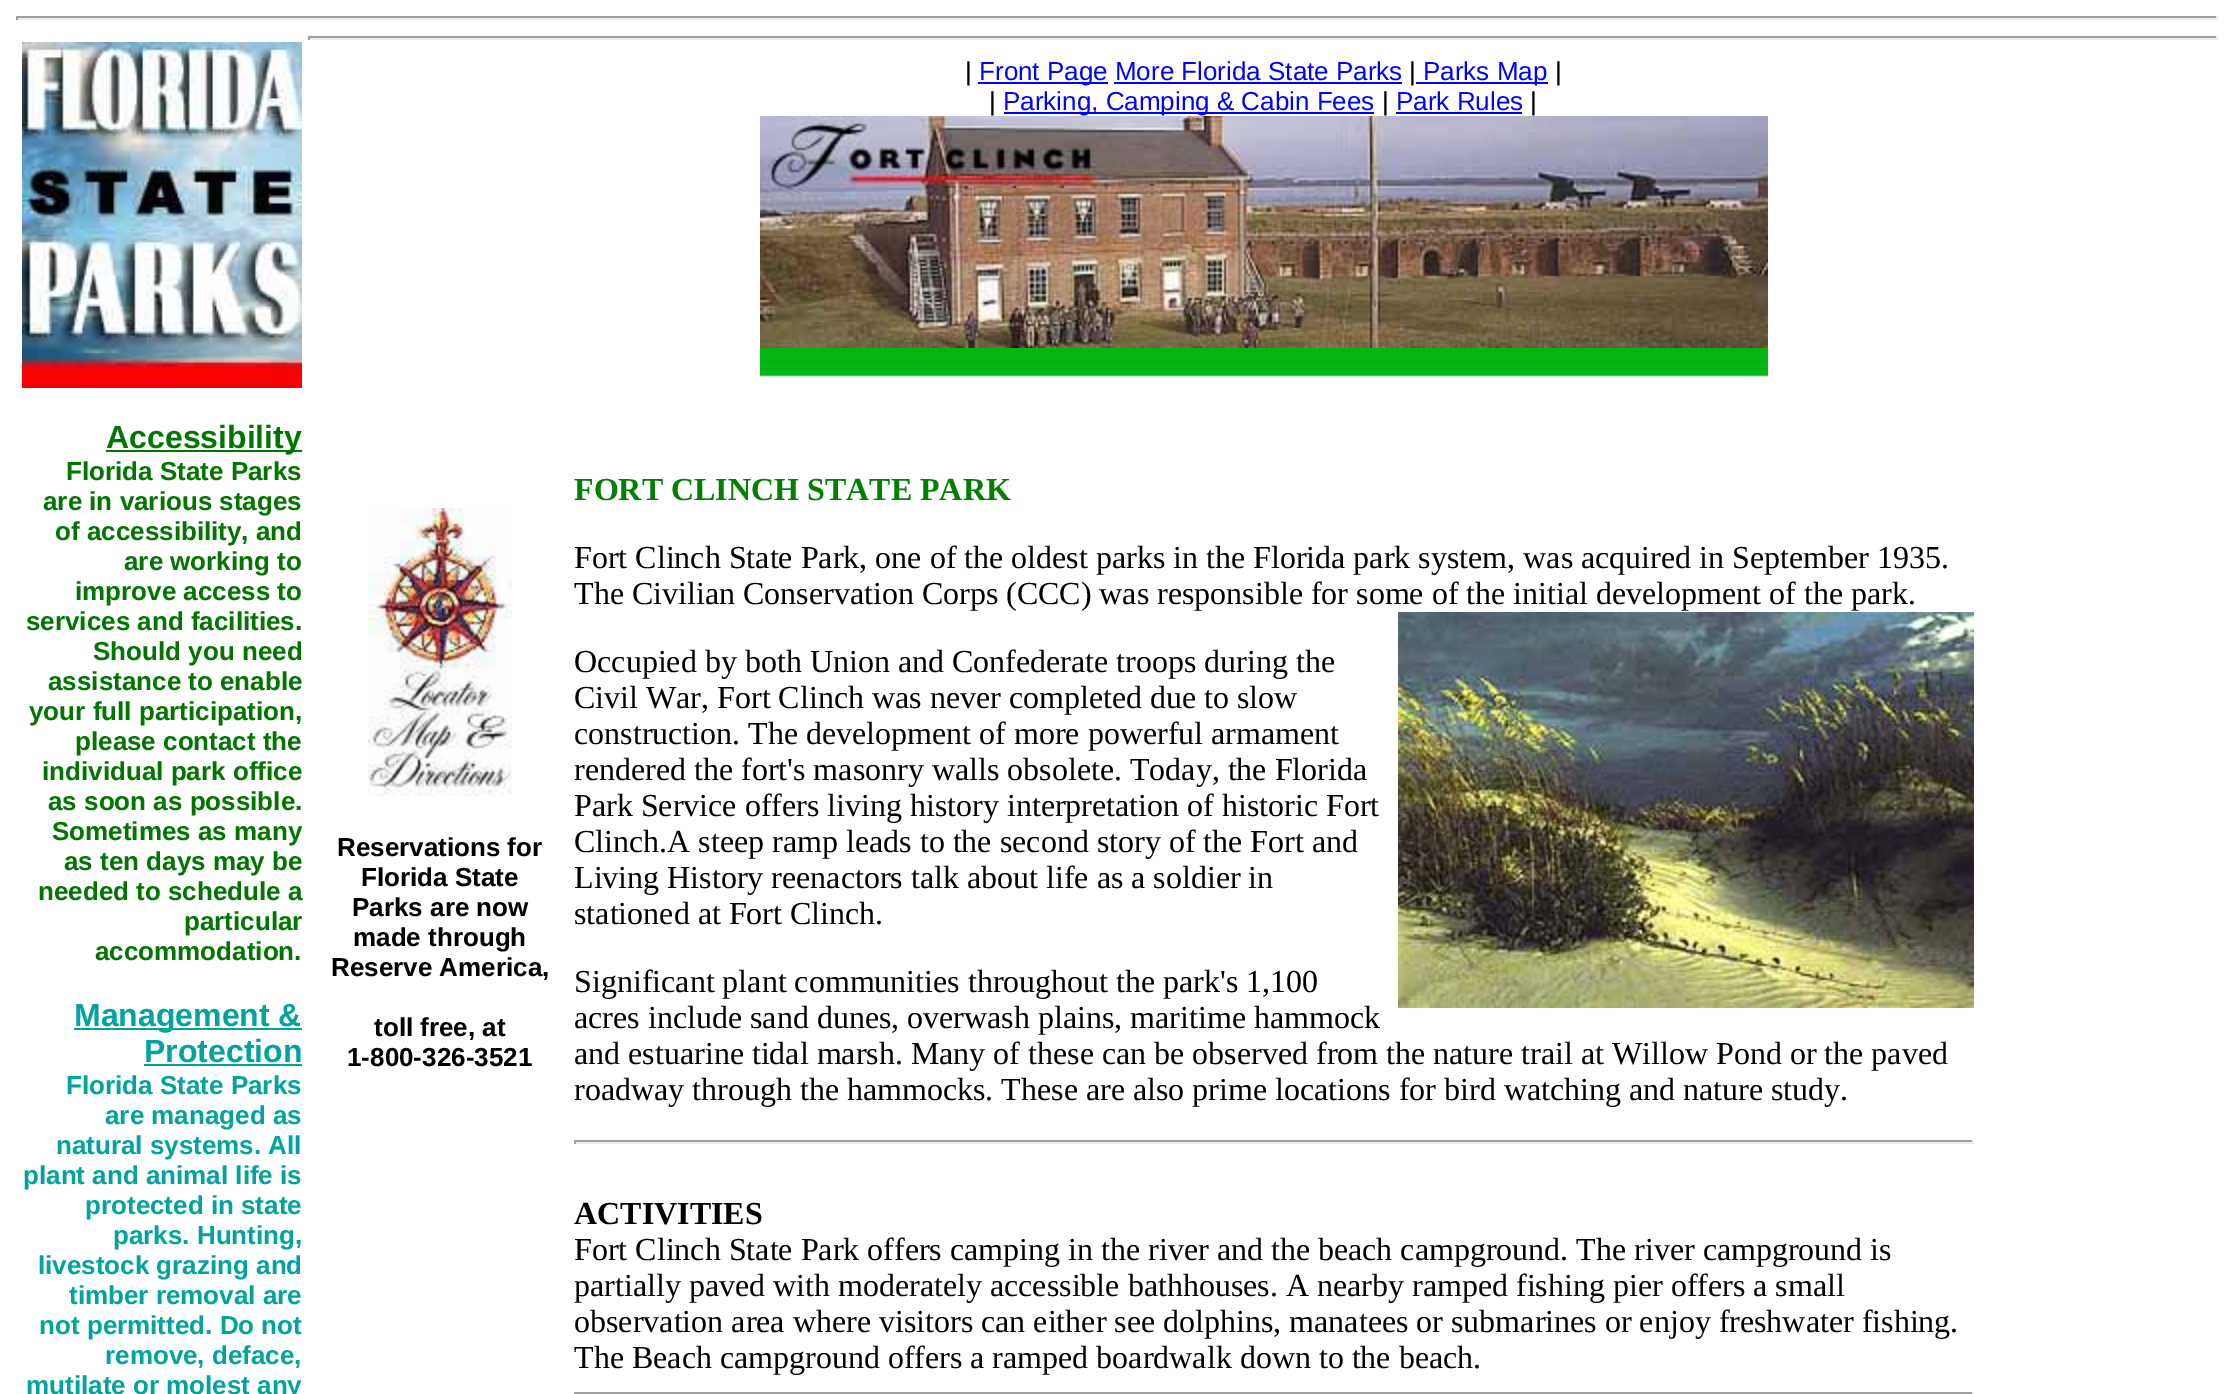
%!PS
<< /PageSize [2234 1394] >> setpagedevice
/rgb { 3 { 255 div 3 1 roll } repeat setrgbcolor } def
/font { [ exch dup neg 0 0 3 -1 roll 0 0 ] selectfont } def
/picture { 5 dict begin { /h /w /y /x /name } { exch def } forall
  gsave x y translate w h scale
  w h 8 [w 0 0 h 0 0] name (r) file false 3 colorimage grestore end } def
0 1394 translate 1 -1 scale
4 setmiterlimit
255 255 255 rgb
0 0 2234 1394 rectfill
[
  [16 16 2202 2 159 159 159]
  [2216 16 2 4 238 238 238]
  [16 18 2202 2 238 238 238]
  [16 16 2 4 159 159 159]
  [308 36 1910 2 159 159 159]
  [2216 36 2 4 238 238 238]
  [308 38 1910 2 238 238 238]
  [308 36 2 4 159 159 159]
  [978 82 130 2 0 0 255]
  [1114 82 288 2 0 0 255]
  [1416 82 132 2 0 0 255]
  [1004 112 370 2 0 0 255]
  [1396 112 126 2 0 0 255]
] { aload pop rgb rectfill } forall
(img/1.rgb) 760 116 1008 232 picture
(img/2.rgb) 760 348 1008 29 picture
(img/3.rgb) 22 42 280 346 picture
[
  [106 450 196 2 0 117 0]
  [74 1028 228 2 0 163 158]
  [144 1064 158 2 0 163 158]
] { aload pop rgb rectfill } forall
(img/4.rgb) 368 508 144 288 picture
(img/5.rgb) 1398 612 576 396 picture
[
  [574 1140 1400 2 159 159 159]
  [1972 1140 2 4 238 238 238]
  [574 1142 1400 2 238 238 238]
  [574 1140 2 4 159 159 159]
  [574 1392 1400 2 159 159 159]
  [1972 1392 2 2 238 238 238]
] { aload pop rgb rectfill } forall
/LiberationSans-Regular 26 font
0 0 0 rgb
965 80 moveto (|) show
0 0 255 rgb
979 80 moveto (Front Page More Florida State Parks) show
0 0 0 rgb
1409 80 moveto (|) show
0 0 255 rgb
1423 80 moveto (Parks Map) show
0 0 0 rgb
1555 80 moveto (|) show
989 110 moveto (|) show
0 0 255 rgb
1003 110 moveto (Parking, Camping & Cabin Fees) show
0 0 0 rgb
1382 110 moveto (|) show
0 0 255 rgb
1396 110 moveto (Park Rules) show
0 0 0 rgb
1530 110 moveto (|) show
/LiberationSans-Bold 32 font
0 117 0 rgb
106 448 moveto (Accessibility) show
/LiberationSans-Bold 26 font
[
  [(Florida State Parks) 66 480]
  [(are in various stages) 43 510]
  [(of accessibility, and) 55 540]
  [(are working to) 124 570]
  [(improve access to) 75 600]
  [(services and facilities.) 26 630]
  [(Should you need) 93 660]
  [(assistance to enable) 48 690]
  [(your full participation,) 29 720]
  [(please contact the) 75 750]
  [(individual park office) 42 780]
  [(as soon as possible.) 48 810]
  [(Sometimes as many) 52 840]
  [(as ten days may be) 64 870]
  [(needed to schedule a) 38 900]
  [(particular) 184 930]
  [(accommodation.) 95 960]
] { aload pop moveto show } forall
/LiberationSans-Bold 32 font
0 163 158 rgb
74 1026 moveto (Management &) show
144 1062 moveto (Protection) show
/LiberationSans-Bold 26 font
[
  [(Florida State Parks) 66 1094]
  [(are managed as) 105 1124]
  [(natural systems. All) 56 1154]
  [(plant and animal life is) 23 1184]
  [(protected in state) 85 1214]
  [(parks. Hunting,) 113 1244]
  [(livestock grazing and) 38 1274]
  [(timber removal are) 69 1304]
  [(not permitted. Do not) 39 1334]
  [(remove, deface,) 105 1364]
  [(mutilate or molest any) 26 1394]
] { aload pop moveto show } forall
0 0 0 rgb
[
  [(Reservations for) 337 856]
  [(Florida State) 361 886]
  [(Parks are now) 352 916]
  [(made through) 353 946]
  [(Reserve America,) 331 976]
  [(toll free, at) 374 1036]
  [(1-800-326-3521) 347 1066]
] { aload pop moveto show } forall
/LiberationSerif-Bold 32 font
0 128 0 rgb
574 500 moveto (FORT CLINCH STATE PARK) show
/LiberationSerif-Regular 32 font
0 0 0 rgb
[
  [(Fort Clinch State Park, one of the oldest parks in the Florida park system, was acquired in September 1935.) 574 568]
  [(The Civilian Conservation Corps \(CCC\) was responsible for some of the initial development of the park.) 574 604]
  [(Occupied by both Union and Confederate troops during the) 574 672]
  [(Civil War, Fort Clinch was never completed due to slow) 574 708]
  [(construction. The development of more powerful armament) 574 744]
  [(rendered the fort's masonry walls obsolete. Today, the Florida) 574 780]
  [(Park Service offers living history interpretation of historic Fort) 574 816]
  [(Clinch.A steep ramp leads to the second story of the Fort and) 574 852]
  [(Living History reenactors talk about life as a soldier in) 574 888]
  [(stationed at Fort Clinch.) 574 924]
  [(Significant plant communities throughout the park's 1,100) 574 992]
  [(acres include sand dunes, overwash plains, maritime hammock) 574 1028]
  [(and estuarine tidal marsh. Many of these can be observed from the nature trail at Willow Pond or the paved) 574 1064]
  [(roadway through the hammocks. These are also prime locations for bird watching and nature study.) 574 1100]
] { aload pop moveto show } forall
/LiberationSerif-Bold 32 font
574 1224 moveto (ACTIVITIES) show
/LiberationSerif-Regular 32 font
[
  [(Fort Clinch State Park offers camping in the river and the beach campground. The river campground is) 574 1260]
  [(partially paved with moderately accessible bathhouses. A nearby ramped fishing pier offers a small) 574 1296]
  [(observation area where visitors can either see dolphins, manatees or submarines or enjoy freshwater fishing.) 574 1332]
  [(The Beach campground offers a ramped boardwalk down to the beach.) 574 1368]
] { aload pop moveto show } forall
showpage
